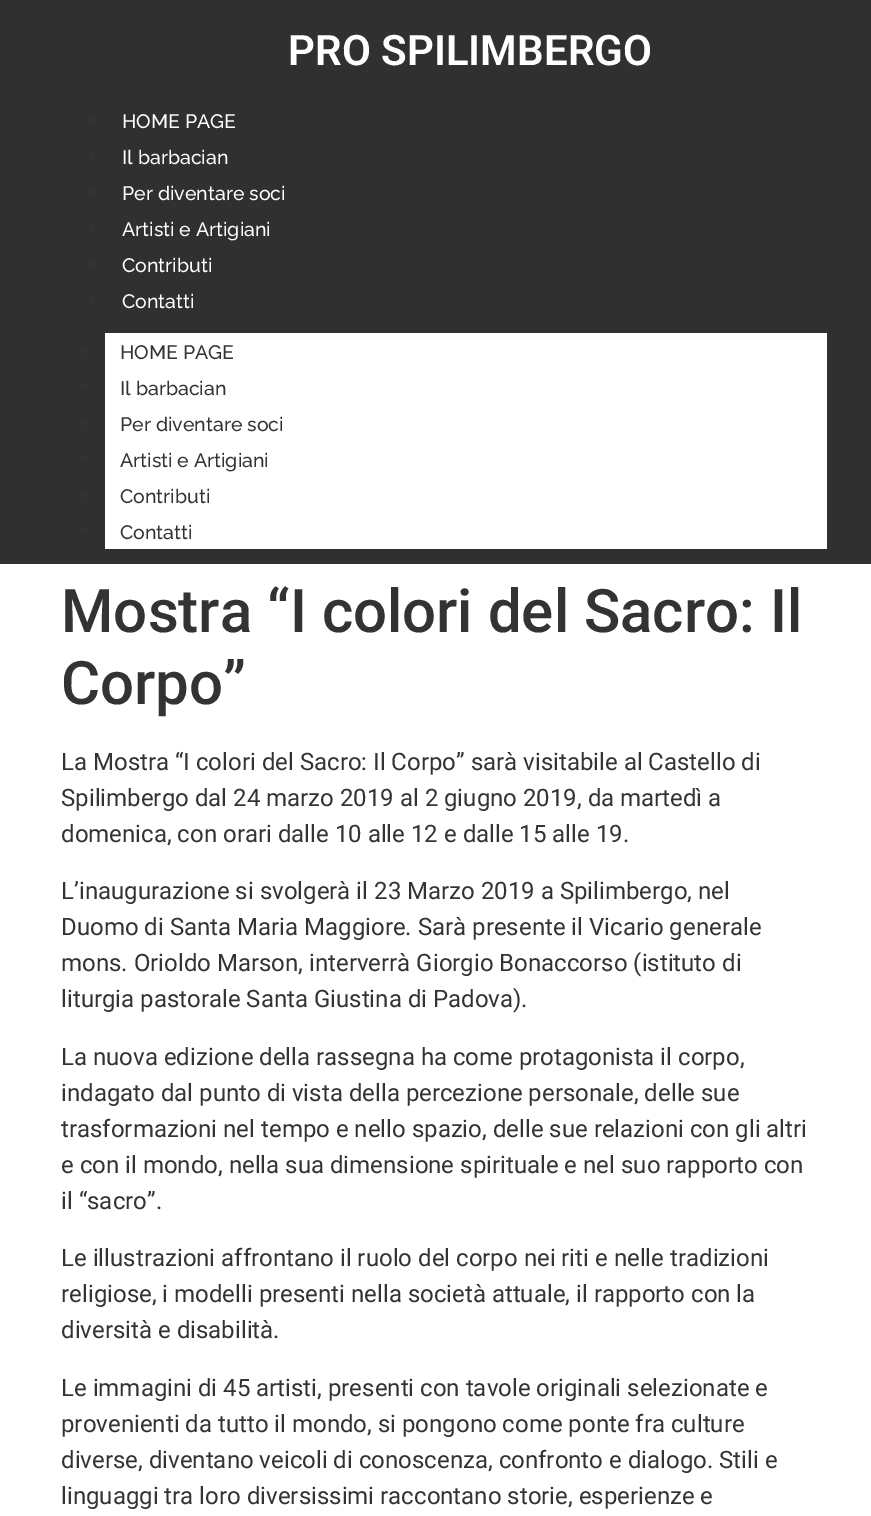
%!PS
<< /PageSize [871 1516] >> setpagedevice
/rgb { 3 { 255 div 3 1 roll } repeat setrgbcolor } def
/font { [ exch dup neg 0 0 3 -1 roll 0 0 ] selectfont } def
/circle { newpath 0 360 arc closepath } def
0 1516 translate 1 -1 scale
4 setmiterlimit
255 255 255 rgb
0 0 871 1516 rectfill
48 48 48 rgb
0 0 871 564 rectfill
51 51 51 rgb
92.5 119.5 3.5 circle fill
92.5 155.5 3.5 circle fill
92.5 191.5 3.5 circle fill
92.5 227.5 3.5 circle fill
92.5 263.5 3.5 circle fill
92.5 299.5 3.5 circle fill
255 255 255 rgb
105 333 722 216 rectfill
51 51 51 rgb
83.5 350.5 3.5 circle fill
83.5 386.5 3.5 circle fill
83.5 422.5 3.5 circle fill
83.5 458.5 3.5 circle fill
83.5 494.5 3.5 circle fill
83.5 530.5 3.5 circle fill
/Roboto-SemiBold 42 font
255 255 255 rgb
288 65 moveto (PRO SPILIMBERGO) show
/Raleway-Medium 19.5 font
[
  [(HOME PAGE) 122 128]
  [(Il barbacian) 122 164]
  [(Per diventare soci) 122 200]
  [(Artisti e Artigiani) 122 236]
  [(Contributi) 122 272]
  [(Contatti) 122 308]
] { aload pop moveto show } forall
51 51 51 rgb
[
  [(HOME PAGE) 120 359]
  [(Il barbacian) 120 395]
  [(Per diventare soci) 120 431]
  [(Artisti e Artigiani) 120 467]
  [(Contributi) 120 503]
  [(Contatti) 120 539]
] { aload pop moveto show } forall
/Roboto-Medium 60 font
61 632 moveto (Mostra “I colori del Sacro: Il) show
61 704 moveto (Corpo”) show
/Roboto-Regular 24 font
[
  [(La Mostra “I colori del Sacro: Il Corpo” sarà visitabile al Castello di) 61 770]
  [(Spilimbergo dal 24 marzo 2019 al 2 giugno 2019, da martedì a) 61 806]
  [(domenica, con orari dalle 10 alle 12 e dalle 15 alle 19.) 61 842]
  [(L’inaugurazione si svolgerà il 23 Marzo 2019 a Spilimbergo, nel) 61 899]
  [(Duomo di Santa Maria Maggiore. Sarà presente il Vicario generale) 61 935]
  [(mons. Orioldo Marson, interverrà Giorgio Bonaccorso \(istituto di) 61 971]
  [(liturgia pastorale Santa Giustina di Padova\).) 61 1007]
  [(La nuova edizione della rassegna ha come protagonista il corpo,) 61 1065]
  [(indagato dal punto di vista della percezione personale, delle sue) 61 1101]
  [(trasformazioni nel tempo e nello spazio, delle sue relazioni con gli altri) 61 1137]
  [(e con il mondo, nella sua dimensione spirituale e nel suo rapporto con) 61 1173]
  [(il “sacro”.) 61 1209]
  [(Le illustrazioni affrontano il ruolo del corpo nei riti e nelle tradizioni) 61 1266]
  [(religiose, i modelli presenti nella società attuale, il rapporto con la) 61 1302]
  [(diversità e disabilità.) 61 1338]
  [(Le immagini di 45 artisti, presenti con tavole originali selezionate e) 61 1396]
  [(provenienti da tutto il mondo, si pongono come ponte fra culture) 61 1432]
  [(diverse, diventano veicoli di conoscenza, confronto e dialogo. Stili e) 61 1468]
  [(linguaggi tra loro diversissimi raccontano storie, esperienze e) 61 1504]
] { aload pop moveto show } forall
showpage
